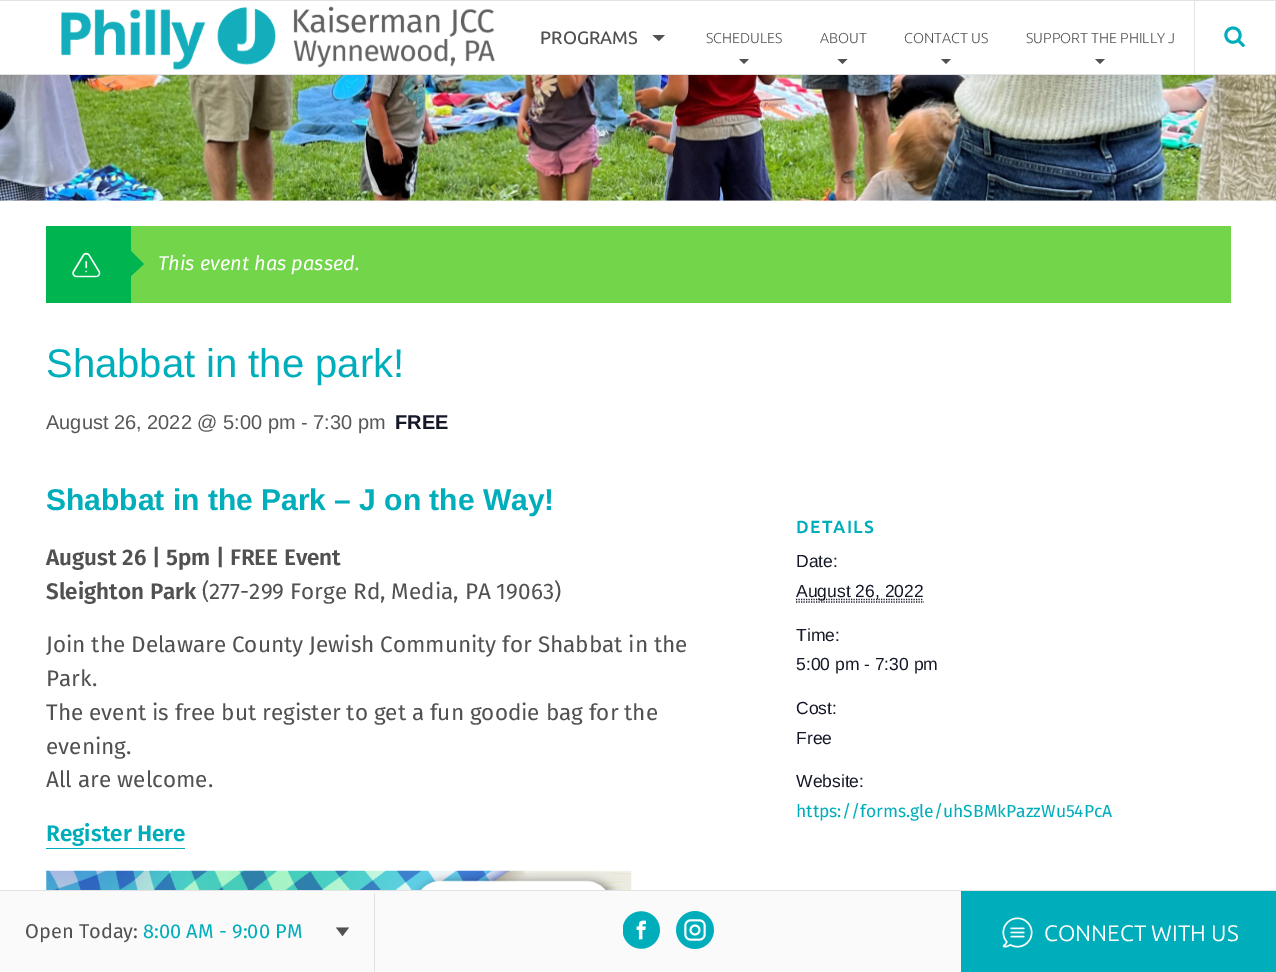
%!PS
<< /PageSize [1276 972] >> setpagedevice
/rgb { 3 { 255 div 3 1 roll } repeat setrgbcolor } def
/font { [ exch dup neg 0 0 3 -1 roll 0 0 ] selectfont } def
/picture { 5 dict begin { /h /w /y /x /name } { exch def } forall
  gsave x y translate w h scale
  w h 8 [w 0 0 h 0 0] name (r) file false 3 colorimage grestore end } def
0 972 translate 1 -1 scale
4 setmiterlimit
255 255 255 rgb
0 0 1276 972 rectfill
227 227 227 rgb
0 0 1276 1 rectfill
0 74 1276 1 rectfill
(img/1.rgb) 61 6 434 64 picture
81 81 81 rgb
652.5 35 moveto 665 35 lineto 659 41 lineto closepath fill
739 59 moveto 749 59 lineto 744 64 lineto closepath fill
837.5 59 moveto 847.5 59 lineto 842.5 64 lineto closepath fill
941 59 moveto 951 59 lineto 946 64 lineto closepath fill
1095 59 moveto 1105 59 lineto 1100 64 lineto closepath fill
227 227 227 rgb
1275 1 1 73 rectfill
1194 1 1 73 rectfill
(img/2.rgb) 1224 26 21 21 picture
(img/3.rgb) 0 75 1276 126 picture
0 181 80 rgb
46 226 85 77 rectfill
(img/4.rgb) 72 252 29 26 picture
114 213 74 rgb
131 226 1100 77 rectfill
0 181 80 rgb
131 276 moveto 131 251 lineto 144 264 lineto closepath fill
0 173 187 rgb
46 848 139 1 rectfill
(img/5.rgb) 46 870 586 20 picture
20 24 39 rgb
1.2 setlinewidth
[1.25 1.25] 0 setdash
796 602 moveto 924 602 lineto stroke
796 599.5 moveto 923.5 599.5 lineto stroke
[
  [0 891 961 81 250 250 250]
  [0 890 1276 1 227 227 227]
  [374 893 1 79 227 227 227]
] { aload pop rgb rectfill } forall
81 81 81 rgb
336 927.5 moveto 349 927.5 lineto 342.5 936 lineto closepath fill
(img/6.rgb) 623 911 37 38 picture
(img/7.rgb) 676 911 38 38 picture
0 173 187 rgb
961 891 315 81 rectfill
(img/8.rgb) 1002 917 31 31 picture
/Ubuntu-Medium 18 font
81 81 81 rgb
540 44 moveto (PROGRAMS) show
/Ubuntu-Light 14.4 font
[
  [(SCHEDULES) 706 43]
  [(ABOUT) 820 43]
  [(CONTACT US) 904 43]
  [(SUPPORT THE PHILLY J) 1026 43]
] { aload pop moveto show } forall
/FiraSans-Italic 20 font
255 255 255 rgb
158 270 moveto (This event has passed.) show
/LiberationSans-Regular 40 font
0 173 187 rgb
46 377 moveto (Shabbat in the park!) show
/LiberationSans-Regular 20 font
88 88 88 rgb
46 429 moveto (August 26, 2022 @ 5:00 pm - 7:30 pm) show
/LiberationSans-Bold 20 font
20 24 39 rgb
395 429 moveto (FREE) show
/LiberationSans-Bold 30 font
0 173 187 rgb
46 510 moveto (Shabbat in the Park – J on the Way!) show
/FiraSans-SemiBold 22.5 font
81 81 81 rgb
46 565 moveto (August 26 | 5pm | FREE Event) show
46 599 moveto (Sleighton Park) show
/FiraSans-Regular 22.5 font
[
  [(\(277-299 Forge Rd, Media, PA 19063\)) 202 599]
  [(Join the Delaware County Jewish Community for Shabbat in the) 46 652]
  [(Park.) 46 686]
  [(The event is free but register to get a fun goodie bag for the) 46 720]
  [(evening.) 46 754]
  [(All are welcome.) 46 787]
] { aload pop moveto show } forall
/FiraSans-SemiBold 22.5 font
0 173 187 rgb
46 841 moveto (Register Here) show
/Ubuntu-Bold 17.5 font
796 533 moveto 1.25 0 (DETAILS) ashow
/LiberationSans-Regular 17.5 font
20 24 39 rgb
[
  [(Date:) 796 567]
  [(August 26, 2022) 796 597]
  [(Time:) 796 641]
  [(5:00 pm - 7:30 pm) 796 670]
  [(Cost:) 796 714]
  [(Free) 796 744]
  [(Website:) 796 787]
] { aload pop moveto show } forall
/FiraSans-Regular 17.5 font
0 173 187 rgb
796 817 moveto (https://forms.gle/uhSBMkPazzWu54PcA) show
/FiraSans-Regular 20 font
81 81 81 rgb
25 938 moveto (Open Today:) show
0 173 187 rgb
143 938 moveto (8:00 AM - 9:00 PM) show
/Ubuntu-Regular 22.5 font
255 255 255 rgb
1044 941 moveto (CONNECT WITH US) show
showpage
